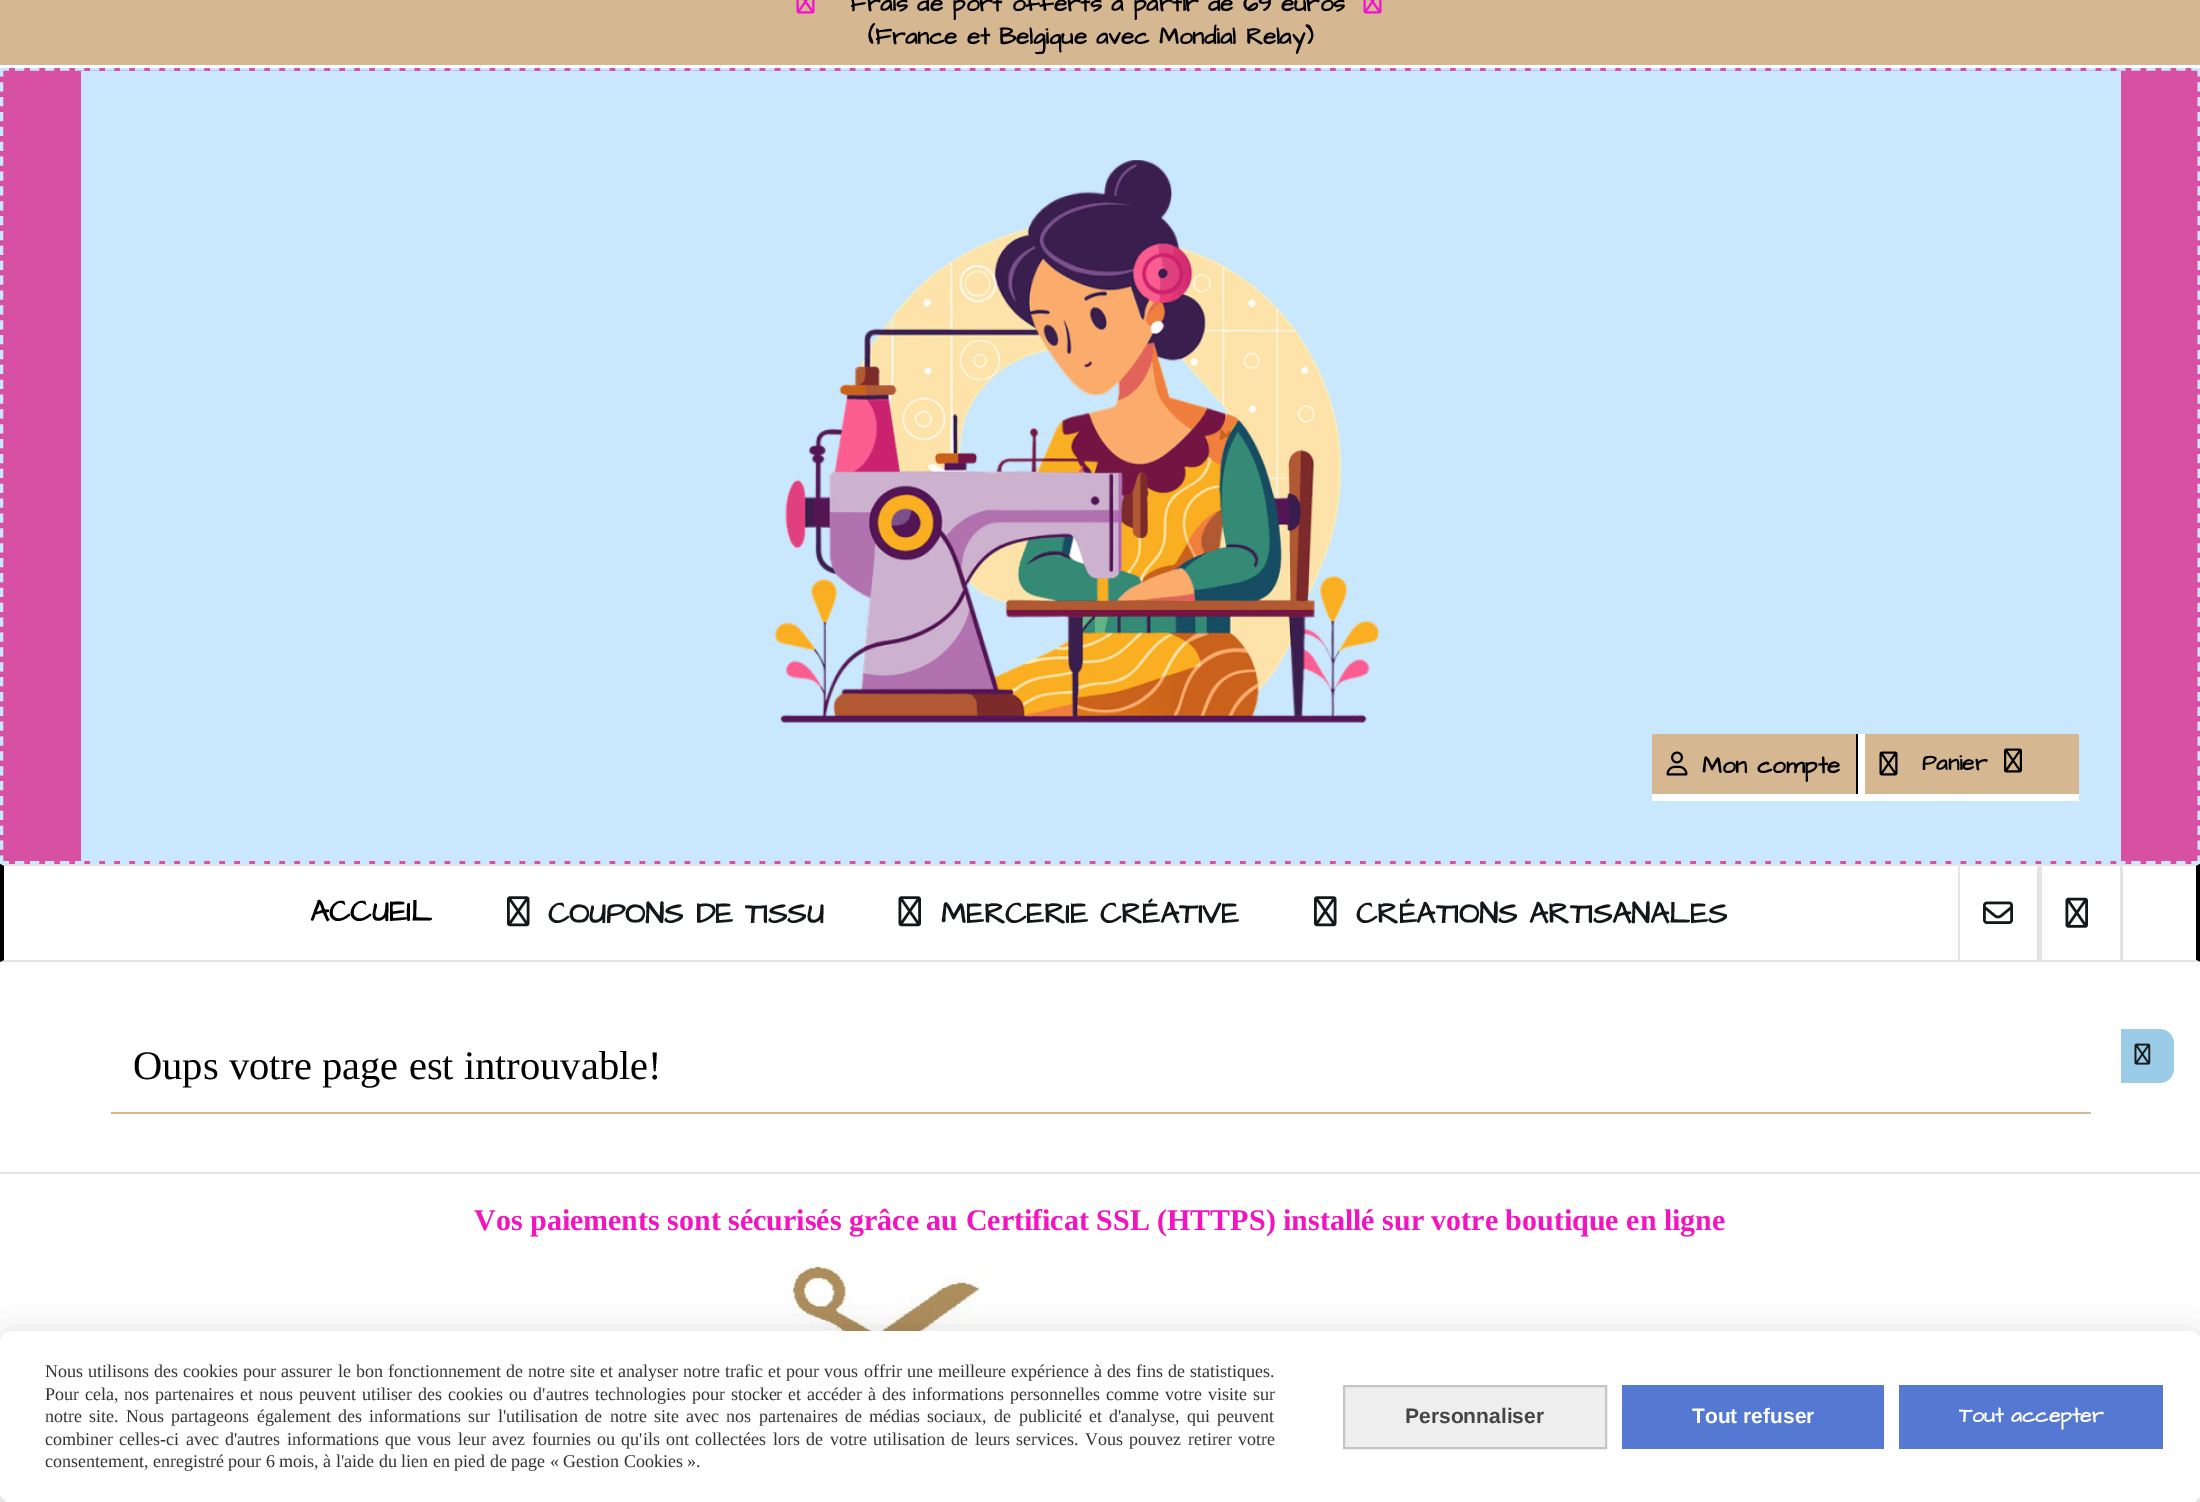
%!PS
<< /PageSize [2200 1502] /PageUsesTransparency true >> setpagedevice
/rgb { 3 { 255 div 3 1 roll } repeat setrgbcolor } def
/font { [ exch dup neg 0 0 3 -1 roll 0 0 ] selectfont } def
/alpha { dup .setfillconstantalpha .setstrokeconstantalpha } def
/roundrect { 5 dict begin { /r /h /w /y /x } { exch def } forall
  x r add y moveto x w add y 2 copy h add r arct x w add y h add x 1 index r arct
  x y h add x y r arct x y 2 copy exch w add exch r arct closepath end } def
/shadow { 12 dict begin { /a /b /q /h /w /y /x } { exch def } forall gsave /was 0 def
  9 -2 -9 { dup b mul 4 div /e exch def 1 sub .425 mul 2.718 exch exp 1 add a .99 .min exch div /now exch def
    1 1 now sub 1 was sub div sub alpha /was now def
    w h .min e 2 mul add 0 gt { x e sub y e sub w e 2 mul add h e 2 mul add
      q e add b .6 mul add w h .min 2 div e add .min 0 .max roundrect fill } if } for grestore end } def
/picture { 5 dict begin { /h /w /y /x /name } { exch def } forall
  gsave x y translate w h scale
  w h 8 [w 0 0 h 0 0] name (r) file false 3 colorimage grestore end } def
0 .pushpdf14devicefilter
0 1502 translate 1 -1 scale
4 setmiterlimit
255 255 255 rgb
0 0 2200 1502 rectfill
213 183 145 rgb
0 0 2200 65 rectfill
(img/1.rgb) 796 0 19 14 picture
(img/1.rgb) 1363 0 19 14 picture
216 80 164 rgb
0 68 2200 796 rectfill
gsave
0 68 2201 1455 rectclip
201 232 253 rgb
3 setlinewidth
[9 6.01] 0 setdash
0 69 moveto 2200.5 69 lineto stroke
[9 5.87] 0 setdash
2199 67.5 moveto 2199 864 lineto stroke
grestore
201 232 253 rgb
3 setlinewidth
[9 6.01] 0 setdash
0 862.5 moveto 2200.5 862.5 lineto stroke
gsave
0 68 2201 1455 rectclip
[9 5.87] 0 setdash
1.5 67.5 moveto 1.5 864 lineto stroke
grestore
81 71 2040 790 rectfill
(img/2.rgb) 775 160 604 563 picture
[
  [1652 734 427 67 255 255 255]
  [1652 734 204 60 213 183 145]
  [1856 734 2 60 0 0 0]
] { aload pop rgb rectfill } forall
(img/3.rgb) 1666 751 22 25 picture
213 183 145 rgb
1865 734 214 60 rectfill
(img/4.rgb) 1879 751 19 25 picture
(img/5.rgb) 2004 748 18 25 picture
228 228 228 rgb
0 864 moveto 2200 864 lineto 2196 866 lineto 4 866 lineto closepath fill
0 0 0 rgb
2200 864 moveto 2200 962 lineto 2196 960 lineto 2196 866 lineto closepath fill
228 228 228 rgb
2200 962 moveto 0 962 lineto 4 960 lineto 2196 960 lineto closepath fill
0 0 0 rgb
0 962 moveto 0 864 lineto 4 866 lineto 4 960 lineto closepath fill
(img/6.rgb) 507 896 23 31 picture
(img/7.rgb) 898 896 23 31 picture
(img/6.rgb) 1314 896 23 31 picture
228 228 228 rgb
2037 866 5 94 rectfill
1958 866 2 94 rectfill
(img/8.rgb) 1983 901 30 23 picture
2120 866 3 94 rectfill
(img/9.rgb) 2065 897 23 31 picture
213 183 145 rgb
111 1112 1980 2 rectfill
228 228 228 rgb
0 1172 2200 2 rectfill
(img/10.rgb) 792 1267 508 64 picture
154 203 231 rgb
2121 1029 moveto 2159 1029 lineto 2167.5 1029 2174 1035.5 2174 1044 curveto 2174 1068 lineto 2174 1076.5 2167.5 1083 2159 1083 curveto 2121 1083 lineto closepath fill
(img/11.rgb) 2134 1043 17 22 picture
0 0 0 rgb
0 1334 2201 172 12 4.5 0.05 shadow
0 1337 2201 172 12 18 0.15 shadow
255 255 255 rgb
0 1331 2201 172 12 roundrect fill
238 238 238 rgb
1344 1386 moveto 1606 1386 lineto 1606 1448 lineto 1344 1448 lineto closepath gsave fill grestore
197 197 197 rgb
2 setlinewidth
[] 0 setdash
stroke
85 121 210 rgb
1622 1385 262 64 rectfill
1899 1385 264 64 rectfill
/ArchitectsDaughter-Bold 24 font
0 0 0 rgb
[
  [(Frais de port offerts à partir de 69 euros) 850 11]
  [(\(France et Belgique avec Mondial Relay\)) 868 44]
  [(Mon compte) 1702 773]
] { aload pop moveto show } forall
/ArchitectsDaughter-Bold 22.5 font
1922 770 moveto (Panier) show
/ArchitectsDaughter-Bold 30 font
310 921 moveto (ACCUEIL) show
20 23 25 rgb
[
  [(COUPONS DE TISSU) 548 923]
  [(MERCERIE CRÉATIVE) 941 923]
  [(CRÉATIONS ARTISANALES) 1356 923]
] { aload pop moveto show } forall
/LiberationSerif-Regular 40.5 font
0 0 0 rgb
133 1079 moveto (Oups votre page est introuvable!) show
/LiberationSerif-Bold 30 font
241 20 191 rgb
474 1230 moveto (Vos paiements sont sécurisés grâce au Certificat SSL \(HTTPS\) installé sur votre boutique en ligne) show
/LiberationSerif-Regular 18 font
51 51 51 rgb
45 1377 moveto 0.6 0 32 (Nous utilisons des cookies pour assurer le bon fonctionnement de notre site et analyser notre trafic et pour vous offrir une meilleure expérience à des fins de statistiques.) widthshow
45 1400 moveto 1.5 0 32 (Pour cela, nos partenaires et nous peuvent utiliser des cookies ou d'autres technologies pour stocker et accéder à des informations personnelles comme votre visite sur) widthshow
45 1422 moveto 2.8 0 32 (notre site. Nous partageons également des informations sur l'utilisation de notre site avec nos partenaires de médias sociaux, de publicité et d'analyse, qui peuvent) widthshow
45 1445 moveto 1.9 0 32 (combiner celles-ci avec d'autres informations que vous leur avez fournies ou qu'ils ont collectées lors de votre utilisation de leurs services. Vous pouvez retirer votre) widthshow
45 1467 moveto (consentement, enregistré pour 6 mois, à l'aide du lien en pied de page « Gestion Cookies ».) show
/LiberationSans-Bold 21 font
68 68 68 rgb
1405 1423 moveto (Personnaliser) show
255 255 255 rgb
1692 1423 moveto (Tout refuser) show
/ArchitectsDaughter-Bold 21 font
1959 1422 moveto (Tout accepter) show
.poppdf14devicefilter showpage
